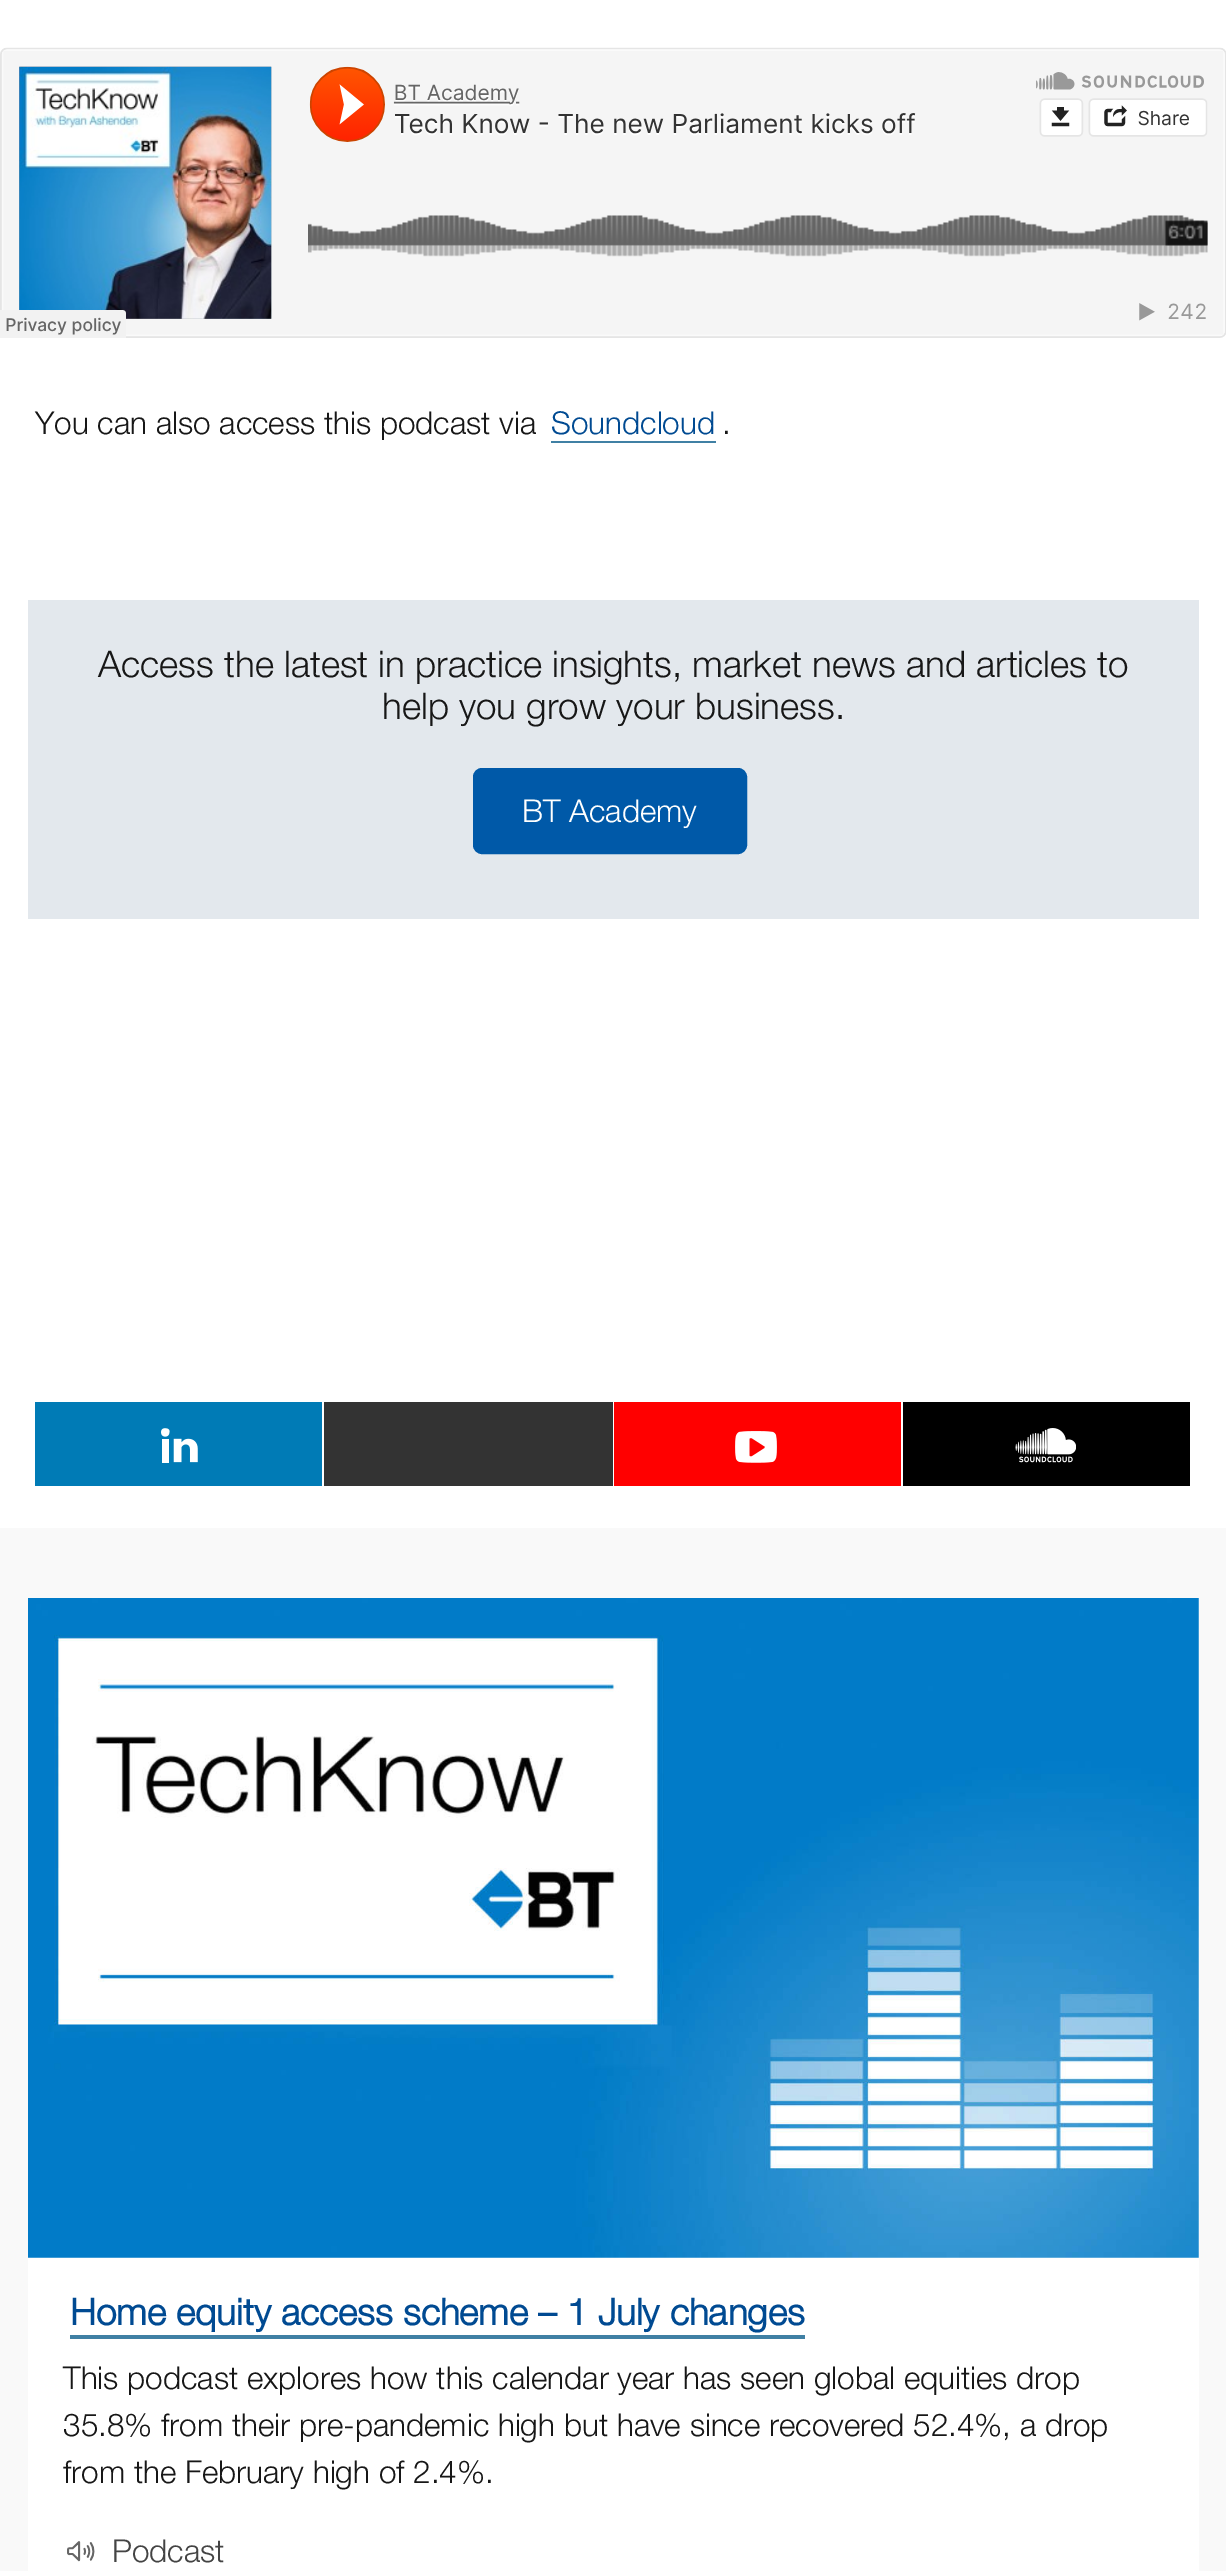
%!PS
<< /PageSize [1226 2571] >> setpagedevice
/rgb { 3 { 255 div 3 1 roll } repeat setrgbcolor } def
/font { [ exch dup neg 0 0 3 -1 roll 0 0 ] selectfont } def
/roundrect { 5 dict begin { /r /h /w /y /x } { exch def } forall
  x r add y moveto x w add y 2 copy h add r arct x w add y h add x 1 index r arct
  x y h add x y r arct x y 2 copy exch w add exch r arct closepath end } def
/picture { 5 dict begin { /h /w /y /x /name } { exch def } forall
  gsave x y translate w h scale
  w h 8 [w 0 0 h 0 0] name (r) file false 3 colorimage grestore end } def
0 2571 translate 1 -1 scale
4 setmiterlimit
255 255 255 rgb
0 0 1226 2571 rectfill
(img/1.rgb) 0 47 1226 291 picture
64 128 164 rgb
551 441 165 2 rectfill
227 232 237 rgb
28 600 1171 319 rectfill
0 89 168 rgb
474 769 272 84 8 roundrect gsave fill grestore
2 setlinewidth
stroke
0 123 182 rgb
35 1402 287 84 rectfill
(img/2.rgb) 161 1428 37 35 picture
51 51 51 rgb
324 1402 289 84 rectfill
255 0 0 rgb
614 1402 287 84 rectfill
(img/3.rgb) 735 1431 42 32 picture
0 0 0 rgb
903 1402 287 84 rectfill
(img/4.rgb) 1015 1428 61 35 picture
249 249 249 rgb
0 1528 1226 1043 rectfill
255 255 255 rgb
28 1598 1171 973 rectfill
(img/5.rgb) 28 1598 1171 660 picture
64 128 164 rgb
70 2335 735 4 rectfill
(img/6.rgb) 67 2541 28 21 picture
/HelveticaNeue-Light 31.5 font
23 23 23 rgb
35 434 moveto (You can also access this podcast via) show
0 74 146 rgb
551 434 moveto (Soundcloud) show
23 23 23 rgb
722 434 moveto (.) show
/HelveticaNeue-Light 36.75 font
98 677 moveto (Access the latest in practice insights, market news and articles to) show
382 719 moveto (help you grow your business.) show
/HelveticaNeue-Light 31.5 font
255 255 255 rgb
522 822 moveto (BT Academy) show
/HelveticaNeue-Bold 36.75 font
0 74 146 rgb
70 2325 moveto (Home equity access scheme – 1 July changes) show
/HelveticaNeue-Light 31.5 font
23 23 23 rgb
[
  [(This podcast explores how this calendar year has seen global equities drop) 63 2389]
  [(35.8% from their pre-pandemic high but have since recovered 52.4%, a drop) 63 2436]
  [(from the February high of 2.4%.) 63 2483]
] { aload pop moveto show } forall
68 68 68 rgb
112 2562 moveto (Podcast) show
showpage
